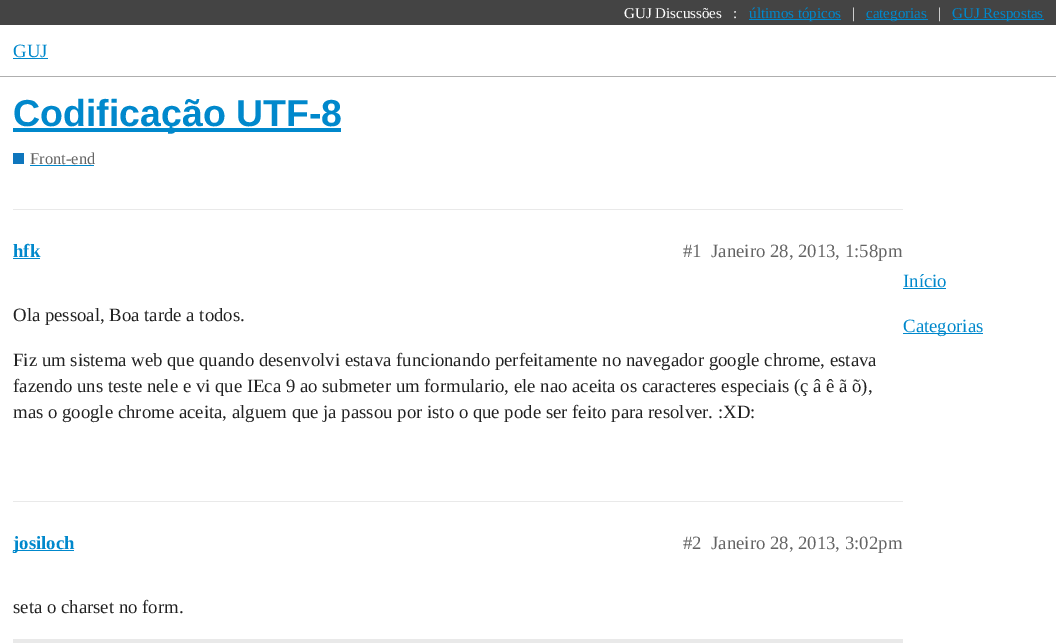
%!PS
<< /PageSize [1056 643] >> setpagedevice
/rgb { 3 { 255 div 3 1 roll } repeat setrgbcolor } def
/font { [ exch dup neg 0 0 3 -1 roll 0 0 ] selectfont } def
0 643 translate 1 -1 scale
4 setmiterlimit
255 255 255 rgb
0 0 1056 643 rectfill
[
  [0 0 1056 25 68 68 68]
  [749 19 92 1 0 136 204]
  [866 19 62 1 0 136 204]
  [953 19 91 1 0 136 204]
  [0 76 1056 1 175 175 175]
  [13 58 35 1 0 136 204]
  [13 128 328 4 0 136 204]
  [13 153 11 11 14 118 189]
  [30 165 64 1 0 136 204]
  [13 209 890 1 233 233 233]
  [13 258 27 1 0 136 204]
  [13 501 890 1 233 233 233]
  [13 550 61 1 0 136 204]
  [13 639 890 4 233 233 233]
  [903 288 43 1 0 136 204]
  [903 333 80 1 0 136 204]
] { aload pop rgb rectfill } forall
/LiberationSerif-Regular 15 font
255 255 255 rgb
624 18 moveto (GUJ Discussões   :) show
0 136 204 rgb
749 18 moveto (últimos tópicos) show
255 255 255 rgb
852 18 moveto (|) show
0 136 204 rgb
866 18 moveto (categorias) show
255 255 255 rgb
938 18 moveto (|) show
0 136 204 rgb
952 18 moveto (GUJ Respostas) show
/LiberationSerif-Regular 18.75 font
13 57 moveto (GUJ) show
/LiberationSans-Bold 37.5 font
13 126 moveto (Codificação UTF-8) show
/LiberationSerif-Regular 16.5 font
100 100 100 rgb
30 164 moveto (Front-end) show
/LiberationSerif-Bold 18.75 font
0 136 204 rgb
13 257 moveto (hfk) show
/LiberationSerif-Regular 18.75 font
100 100 100 rgb
683 257 moveto (#1) show
711 257 moveto (Janeiro 28, 2013, 1:58pm) show
34 34 34 rgb
[
  [(Ola pessoal, Boa tarde a todos.) 13 321]
  [(Fiz um sistema web que quando desenvolvi estava funcionando perfeitamente no navegador google chrome, estava) 13 366]
  [(fazendo uns teste nele e vi que IEca 9 ao submeter um formulario, ele nao aceita os caracteres especiais \(ç â ê ã õ\),) 13 392]
  [(mas o google chrome aceita, alguem que ja passou por isto o que pode ser feito para resolver. :XD:) 13 418]
] { aload pop moveto show } forall
/LiberationSerif-Bold 18.75 font
0 136 204 rgb
13 549 moveto (josiloch) show
/LiberationSerif-Regular 18.75 font
100 100 100 rgb
683 549 moveto (#2) show
711 549 moveto (Janeiro 28, 2013, 3:02pm) show
34 34 34 rgb
13 613 moveto (seta o charset no form.) show
0 136 204 rgb
903 287 moveto (Início) show
903 332 moveto (Categorias) show
showpage
